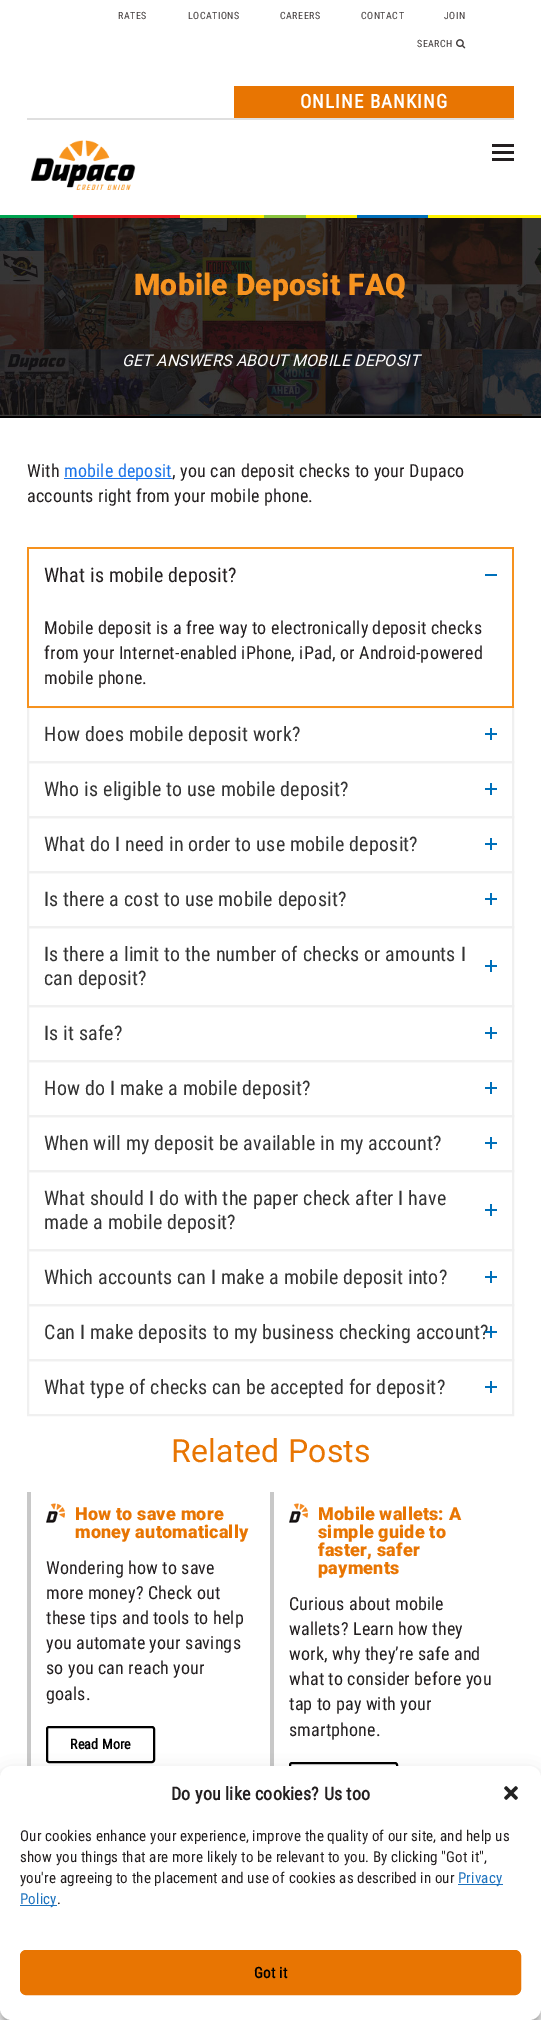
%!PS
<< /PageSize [541 2020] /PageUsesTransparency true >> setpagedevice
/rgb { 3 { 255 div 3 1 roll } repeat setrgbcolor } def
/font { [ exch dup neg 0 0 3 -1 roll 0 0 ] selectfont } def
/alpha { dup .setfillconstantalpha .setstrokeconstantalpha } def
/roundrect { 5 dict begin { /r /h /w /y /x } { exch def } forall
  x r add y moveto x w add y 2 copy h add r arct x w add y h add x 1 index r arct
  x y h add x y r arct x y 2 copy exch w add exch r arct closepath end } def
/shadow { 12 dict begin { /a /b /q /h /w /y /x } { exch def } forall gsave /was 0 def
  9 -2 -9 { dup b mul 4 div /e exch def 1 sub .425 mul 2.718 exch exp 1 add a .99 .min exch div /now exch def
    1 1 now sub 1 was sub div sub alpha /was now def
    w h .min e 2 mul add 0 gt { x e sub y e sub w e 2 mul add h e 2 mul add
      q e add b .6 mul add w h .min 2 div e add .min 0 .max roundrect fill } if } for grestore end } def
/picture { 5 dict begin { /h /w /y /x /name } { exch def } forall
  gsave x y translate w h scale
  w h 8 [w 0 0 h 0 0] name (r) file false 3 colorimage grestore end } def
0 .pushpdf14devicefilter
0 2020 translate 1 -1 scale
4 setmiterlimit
255 255 255 rgb
0 0 541 2020 rectfill
223 223 223 rgb
27 118 487 2 rectfill
(img/1.rgb) 456 39 10 10 picture
232 117 2 rgb
234 86 280 32 rectfill
(img/2.rgb) 31 140 105 50 picture
[
  [492 151 22 3 35 31 32]
  [492 144 22 3 35 31 32]
  [492 158 22 3 35 31 32]
] { aload pop rgb rectfill } forall
(img/3.rgb) 0 215 541 3 picture
(img/4.rgb) 0 218 541 198 picture
[
  [0 416 541 2 0 0 0]
  [64 478 108 1 26 115 232]
  [27 547 487 2 246 146 30]
  [512 547 2 55 246 146 30]
  [27 547 2 55 246 146 30]
  [485 574 12 2 0 112 186]
] { aload pop rgb rectfill } forall
240 240 240 rgb
2 setlinewidth
28 707 485 55 rectstroke
[
  [512 600 2 108 246 146 30]
  [27 706 487 2 246 146 30]
  [27 600 2 108 246 146 30]
  [485 733 12 2 0 112 186]
  [490 728 2 12 0 112 186]
] { aload pop rgb rectfill } forall
240 240 240 rgb
28 762 485 55 rectstroke
0 112 186 rgb
485 788 12 2 rectfill
490 783 2 12 rectfill
240 240 240 rgb
28 817 485 55 rectstroke
0 112 186 rgb
485 843 12 2 rectfill
490 838 2 12 rectfill
240 240 240 rgb
28 872 485 55 rectstroke
0 112 186 rgb
485 898 12 2 rectfill
490 893 2 12 rectfill
240 240 240 rgb
28 927 485 79 rectstroke
0 112 186 rgb
485 965 12 2 rectfill
490 960 2 12 rectfill
240 240 240 rgb
28 1006 485 55 rectstroke
0 112 186 rgb
485 1032 12 2 rectfill
490 1027 2 12 rectfill
240 240 240 rgb
28 1061 485 55 rectstroke
0 112 186 rgb
485 1087 12 2 rectfill
490 1082 2 12 rectfill
240 240 240 rgb
28 1116 485 55 rectstroke
0 112 186 rgb
485 1142 12 2 rectfill
490 1137 2 12 rectfill
240 240 240 rgb
28 1171 485 79 rectstroke
0 112 186 rgb
485 1209 12 2 rectfill
490 1204 2 12 rectfill
240 240 240 rgb
28 1250 485 55 rectstroke
0 112 186 rgb
485 1276 12 2 rectfill
490 1271 2 12 rectfill
240 240 240 rgb
28 1305 485 55 rectstroke
28 1360 485 55 rectstroke
[
  [485 1386 12 2 0 112 186]
  [490 1381 2 12 0 112 186]
  [27 1492 4 274 200 200 200]
] { aload pop rgb rectfill } forall
(img/5.rgb) 46 1503 19 20 picture
0 0 0 rgb
47 1727 107 35 2 roundrect stroke
200 200 200 rgb
270 1492 4 274 rectfill
(img/5.rgb) 289 1503 19 20 picture
0 0 0 rgb
290 1763 107 35 2 roundrect stroke
0 1772 541 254 12 3 0.23 shadow
0 1776 541 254 12 10 0.19 shadow
255 255 255 rgb
0 1766 541 254 12 roundrect fill
(img/6.rgb) 504 1786 14 14 picture
30 115 190 rgb
458 1884 45 1 rectfill
20 1905 37 1 rectfill
232 117 2 rgb
20.5 1950.5 500 44 5.5 roundrect gsave fill grestore
1 setlinewidth
stroke
/RobotoCondensed-Regular 10 font
65 60 60 rgb
118 19 moveto 0.5 0 (RATES) ashow
188 19 moveto 0.5 0 (LOCATIONS) ashow
280 19 moveto 0.5 0 (CAREERS) ashow
361 19 moveto 0.5 0 (CONTACT) ashow
444 19 moveto 0.5 0 (JOIN) ashow
417 47 moveto 0.5 0 (SEARCH) ashow
/RobotoCondensed-Bold 19 font
255 255 255 rgb
300 108 moveto 1 0 (ONLINE BANKING) ashow
/Roboto-Black 30 font
246 147 32 rgb
134 295 moveto 0.18 0 (Mobile Deposit FAQ) ashow
/Roboto-Italic 16 font
255 255 255 rgb
122 366 moveto 0.18 0 (GET ANSWERS ABOUT MOBILE DEPOSIT) ashow
/RobotoCondensed-Regular 18 font
35 31 32 rgb
27 477 moveto 0.18 0 (With) ashow
26 115 232 rgb
64 477 moveto 0.18 0 (mobile deposit) ashow
35 31 32 rgb
172 477 moveto 0.18 0 (, you can deposit checks to your Dupaco) ashow
27 502 moveto 0.18 0 (accounts right from your mobile phone.) ashow
/RobotoCondensed-Regular 20 font
44 582 moveto 0.18 0 (What is mobile deposit?) ashow
/RobotoCondensed-Regular 18 font
44 634 moveto 0.18 0 (Mobile deposit is a free way to electronically deposit checks) ashow
44 659 moveto 0.18 0 (from your Internet-enabled iPhone, iPad, or Android-powered) ashow
44 684 moveto 0.18 0 (mobile phone.) ashow
/RobotoCondensed-Regular 20 font
51 51 51 rgb
44 741 moveto 0.18 0 (How does mobile deposit work?) ashow
44 796 moveto 0.18 0 (Who is eligible to use mobile deposit?) ashow
44 851 moveto 0.18 0 (What do I need in order to use mobile deposit?) ashow
44 906 moveto 0.18 0 (Is there a cost to use mobile deposit?) ashow
44 961 moveto 0.18 0 (Is there a limit to the number of checks or amounts I) ashow
44 985 moveto 0.18 0 (can deposit?) ashow
44 1040 moveto 0.18 0 (Is it safe?) ashow
44 1095 moveto 0.18 0 (How do I make a mobile deposit?) ashow
44 1150 moveto 0.18 0 (When will my deposit be available in my account?) ashow
44 1205 moveto 0.18 0 (What should I do with the paper check after I have) ashow
44 1229 moveto 0.18 0 (made a mobile deposit?) ashow
44 1284 moveto 0.18 0 (Which accounts can I make a mobile deposit into?) ashow
44 1339 moveto 0.18 0 (Can I make deposits to my business checking account?) ashow
0 112 186 rgb
485 1331 12 2 rectfill
490 1326 2 12 rectfill
51 51 51 rgb
44 1394 moveto 0.18 0 (What type of checks can be accepted for deposit?) ashow
/Roboto-Regular 32 font
232 117 2 rgb
171 1462 moveto 0.18 0 (Related Posts) ashow
/Roboto-Black 18 font
75 1520 moveto 0.18 0 (How to save more) ashow
75 1538 moveto 0.18 0 (money automatically) ashow
/RobotoCondensed-Regular 18 font
35 31 32 rgb
46 1574 moveto 0.18 0 (Wondering how to save) ashow
46 1599 moveto 0.18 0 (more money? Check out) ashow
46 1624 moveto 0.18 0 (these tips and tools to help) ashow
46 1649 moveto 0.18 0 (you automate your savings) ashow
46 1674 moveto 0.18 0 (so you can reach your) ashow
46 1700 moveto 0.18 0 (goals.) ashow
/RobotoCondensed-Bold 14 font
0 0 0 rgb
70 1749 moveto 0.18 0 (Read More) ashow
/Roboto-Black 18 font
232 117 2 rgb
318 1520 moveto 0.18 0 (Mobile wallets: A) ashow
318 1538 moveto 0.18 0 (simple guide to) ashow
318 1556 moveto 0.18 0 (faster, safer) ashow
318 1574 moveto 0.18 0 (payments) ashow
/RobotoCondensed-Regular 18 font
35 31 32 rgb
289 1610 moveto 0.18 0 (Curious about mobile) ashow
289 1635 moveto 0.18 0 (wallets? Learn how they) ashow
289 1660 moveto 0.18 0 (work, why they’re safe and) ashow
289 1685 moveto 0.18 0 (what to consider before you) ashow
289 1710 moveto 0.18 0 (tap to pay with your) ashow
289 1736 moveto 0.18 0 (smartphone.) ashow
/RobotoCondensed-Bold 18 font
171 1800 moveto 0.18 0 (Do you like cookies? Us too) ashow
/RobotoCondensed-Regular 15 font
20 1841 moveto 0.15 0 (Our cookies enhance your experience, improve the quality of our site, and help us) ashow
20 1862 moveto 0.15 0 (show you things that are more likely to be relevant to you. By clicking "Got it",) ashow
20 1883 moveto 0.15 0 (you're agreeing to the placement and use of cookies as described in our) ashow
30 115 190 rgb
458 1883 moveto 0.15 0 (Privacy) ashow
20 1904 moveto 0.15 0 (Policy) ashow
35 31 32 rgb
57 1904 moveto 0.15 0 (.) ashow
/RobotoCondensed-Bold 15 font
0 0 0 rgb
254 1978 moveto 0.18 0 (Got it) ashow
.poppdf14devicefilter showpage
